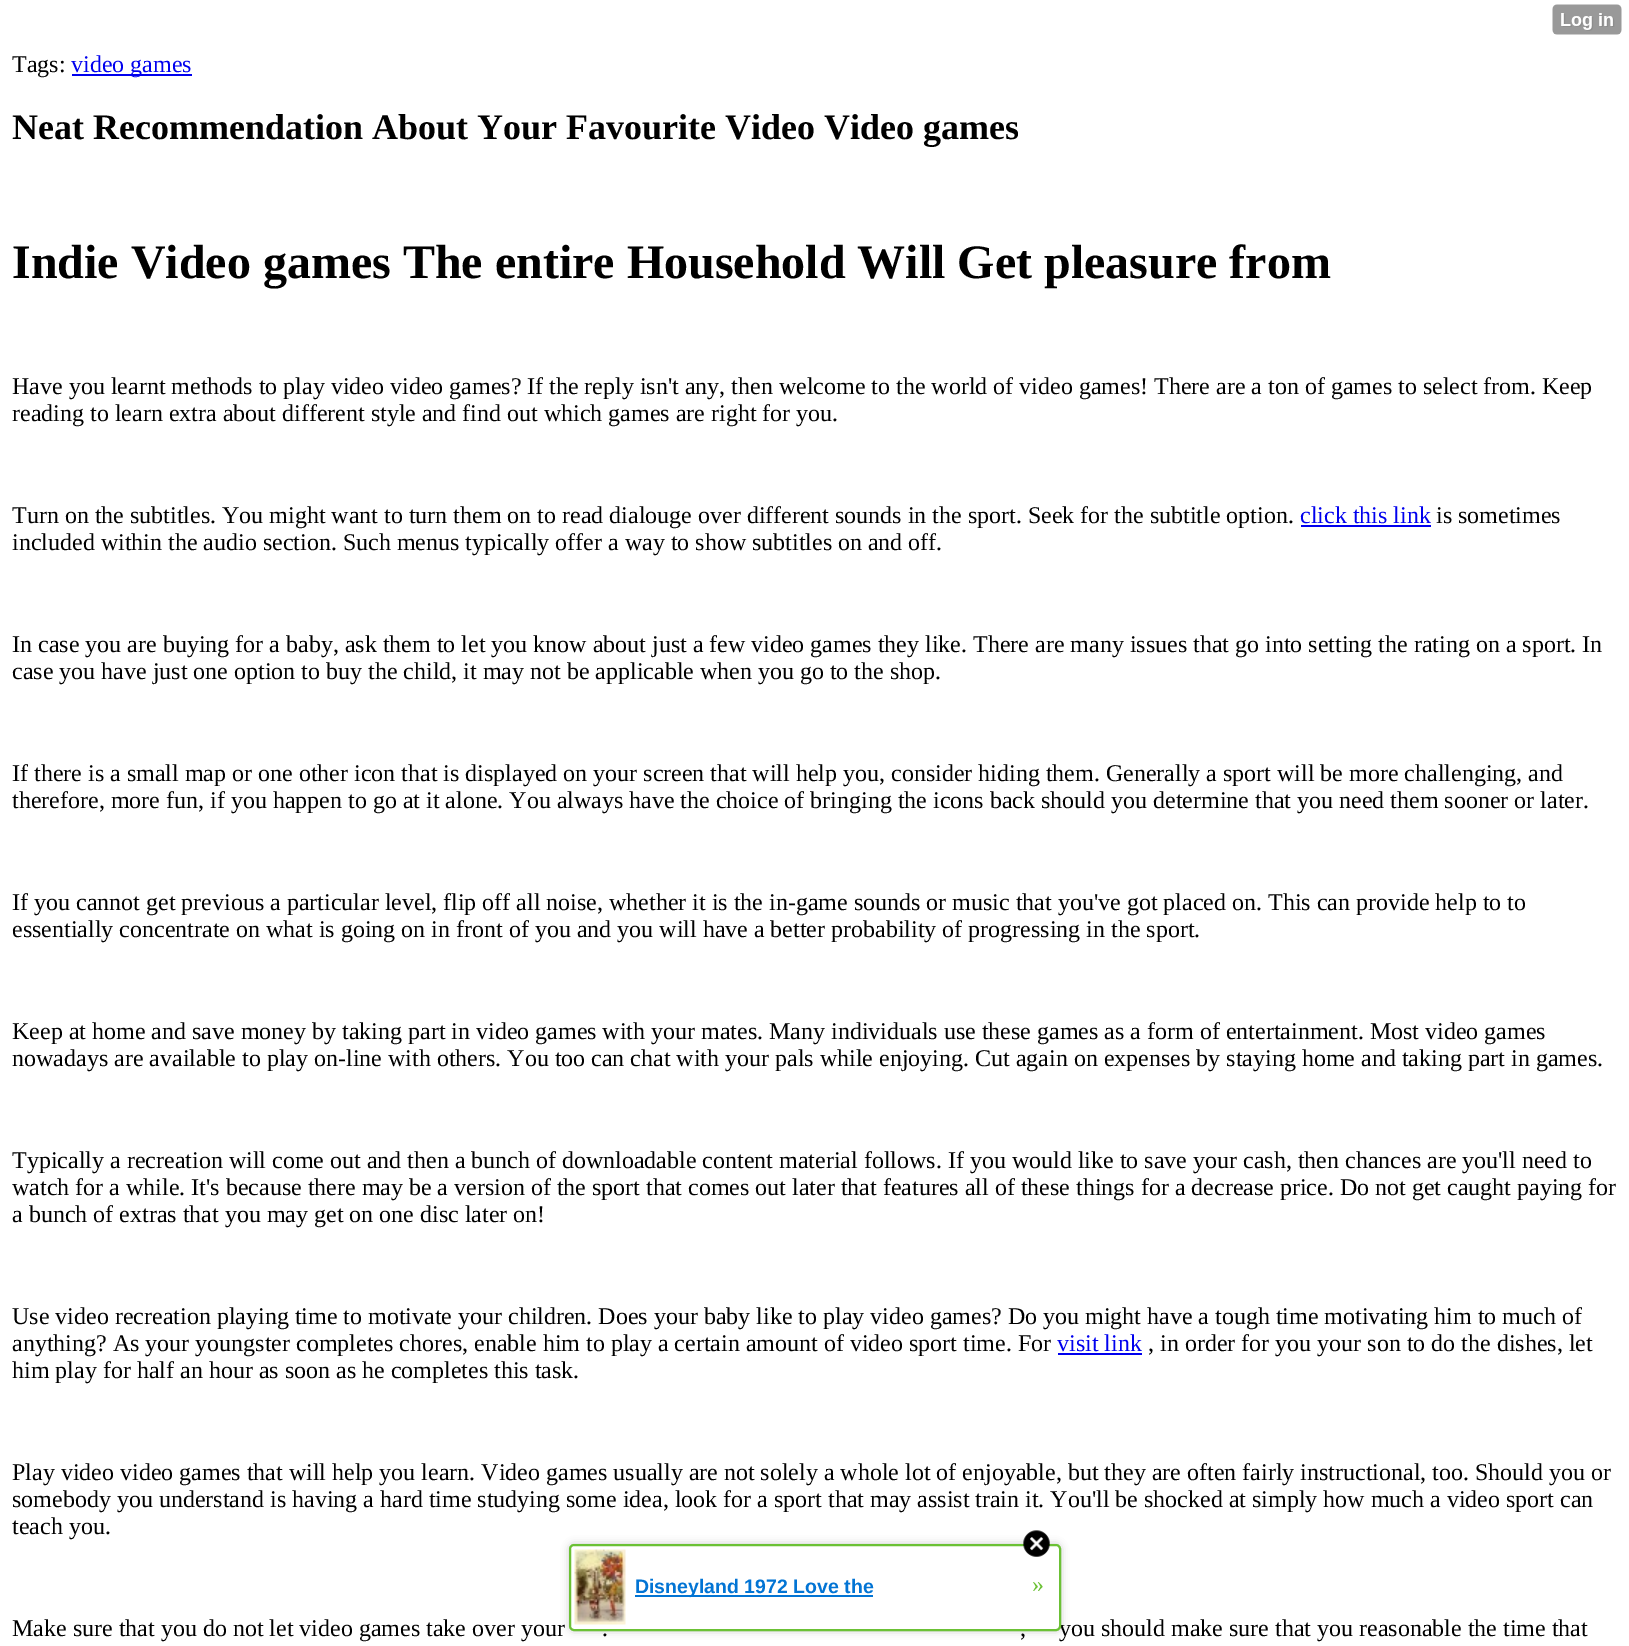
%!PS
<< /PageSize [1629 1646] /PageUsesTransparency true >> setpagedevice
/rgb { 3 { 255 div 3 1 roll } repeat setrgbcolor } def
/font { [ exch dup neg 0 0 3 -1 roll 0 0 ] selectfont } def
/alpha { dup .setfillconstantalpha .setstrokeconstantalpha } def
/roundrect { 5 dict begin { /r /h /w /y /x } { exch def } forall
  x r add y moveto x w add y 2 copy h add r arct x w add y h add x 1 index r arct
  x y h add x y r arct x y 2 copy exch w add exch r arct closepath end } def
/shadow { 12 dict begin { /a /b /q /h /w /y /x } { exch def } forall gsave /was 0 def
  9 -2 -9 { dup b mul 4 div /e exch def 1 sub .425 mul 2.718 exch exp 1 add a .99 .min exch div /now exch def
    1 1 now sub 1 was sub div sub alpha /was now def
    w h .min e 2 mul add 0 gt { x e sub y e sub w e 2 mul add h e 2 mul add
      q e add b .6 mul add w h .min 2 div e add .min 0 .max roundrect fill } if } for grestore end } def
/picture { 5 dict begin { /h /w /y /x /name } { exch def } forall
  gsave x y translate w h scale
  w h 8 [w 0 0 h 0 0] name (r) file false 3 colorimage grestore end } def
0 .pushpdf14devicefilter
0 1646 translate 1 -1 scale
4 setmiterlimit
255 255 255 rgb
0 0 1629 1646 rectfill
(img/1.rgb) 1552 4 70 31 picture
[
  [72 74 120 2 0 0 238]
  [1301 525 130 2 0 0 238]
  [1058 1353 84 2 0 0 238]
] { aload pop rgb rectfill } forall
0 0 0 rgb
569 1544 492 87 5 4 0.2 shadow
/LiberationSerif-Regular 24 font
12 72 moveto (Tags:) show
0 0 238 rgb
71 72 moveto (video games) show
/LiberationSerif-Bold 36 font
0 0 0 rgb
12 139 moveto (Neat Recommendation About Your Favourite Video Video games) show
/LiberationSerif-Bold 48 font
12 278 moveto (Indie Video games The entire Household Will Get pleasure from) show
/LiberationSerif-Regular 24 font
[
  [(Have you learnt methods to play video video games? If the reply isn't any, then welcome to the world of video games! There are a ton of games to select from. Keep) 12 394]
  [(reading to learn extra about different style and find out which games are right for you.) 12 421]
  [(Turn on the subtitles. You might want to turn them on to read dialouge over different sounds in the sport. Seek for the subtitle option.) 12 523]
] { aload pop moveto show } forall
0 0 238 rgb
1300 523 moveto (click this link) show
0 0 0 rgb
[
  [(is sometimes) 1436 523]
  [(included within the audio section. Such menus typically offer a way to show subtitles on and off.) 12 550]
  [(In case you are buying for a baby, ask them to let you know about just a few video games they like. There are many issues that go into setting the rating on a sport. In) 12 652]
  [(case you have just one option to buy the child, it may not be applicable when you go to the shop.) 12 679]
  [(If there is a small map or one other icon that is displayed on your screen that will help you, consider hiding them. Generally a sport will be more challenging, and) 12 781]
  [(therefore, more fun, if you happen to go at it alone. You always have the choice of bringing the icons back should you determine that you need them sooner or later.) 12 808]
  [(If you cannot get previous a particular level, flip off all noise, whether it is the in-game sounds or music that you've got placed on. This can provide help to to) 12 910]
  [(essentially concentrate on what is going on in front of you and you will have a better probability of progressing in the sport.) 12 937]
  [(Keep at home and save money by taking part in video games with your mates. Many individuals use these games as a form of entertainment. Most video games) 12 1039]
  [(nowadays are available to play on-line with others. You too can chat with your pals while enjoying. Cut again on expenses by staying home and taking part in games.) 12 1066]
  [(Typically a recreation will come out and then a bunch of downloadable content material follows. If you would like to save your cash, then chances are you'll need to) 12 1168]
  [(watch for a while. It's because there may be a version of the sport that comes out later that features all of these things for a decrease price. Do not get caught paying for) 12 1195]
  [(a bunch of extras that you may get on one disc later on!) 12 1222]
  [(Use video recreation playing time to motivate your children. Does your baby like to play video games? Do you might have a tough time motivating him to much of) 12 1324]
  [(anything? As your youngster completes chores, enable him to play a certain amount of video sport time. For) 12 1351]
] { aload pop moveto show } forall
0 0 238 rgb
1057 1351 moveto (visit link) show
0 0 0 rgb
[
  [(, in order for you your son to do the dishes, let) 1148 1351]
  [(him play for half an hour as soon as he completes this task.) 12 1378]
  [(Play video video games that will help you learn. Video games usually are not solely a whole lot of enjoyable, but they are often fairly instructional, too. Should you or) 12 1480]
  [(somebody you understand is having a hard time studying some idea, look for a sport that may assist train it. You'll be shocked at simply how much a video sport can) 12 1507]
  [(teach you.) 12 1534]
  [(Make sure that you do not let video games take over your) 12 1636]
  [(.) 602 1636]
  [(,) 1020 1636]
  [(you should make sure that you reasonable the time that) 1059 1636]
] { aload pop moveto show } forall
255 255 255 rgb
570 1545 490 85 4 roundrect gsave fill grestore
107 193 53 rgb
2 setlinewidth
stroke
(img/2.rgb) 1023 1530 27 27 picture
(img/3.rgb) 574 1549 52 76 picture
2 116 212 rgb
635 1595 238 2 rectfill
/LiberationSans-Bold 19.5 font
635 1593 moveto (Disneyland 1972 Love the) show
/LiberationSerif-Regular 24 font
107 193 53 rgb
1032 1592 moveto (») show
.poppdf14devicefilter showpage
